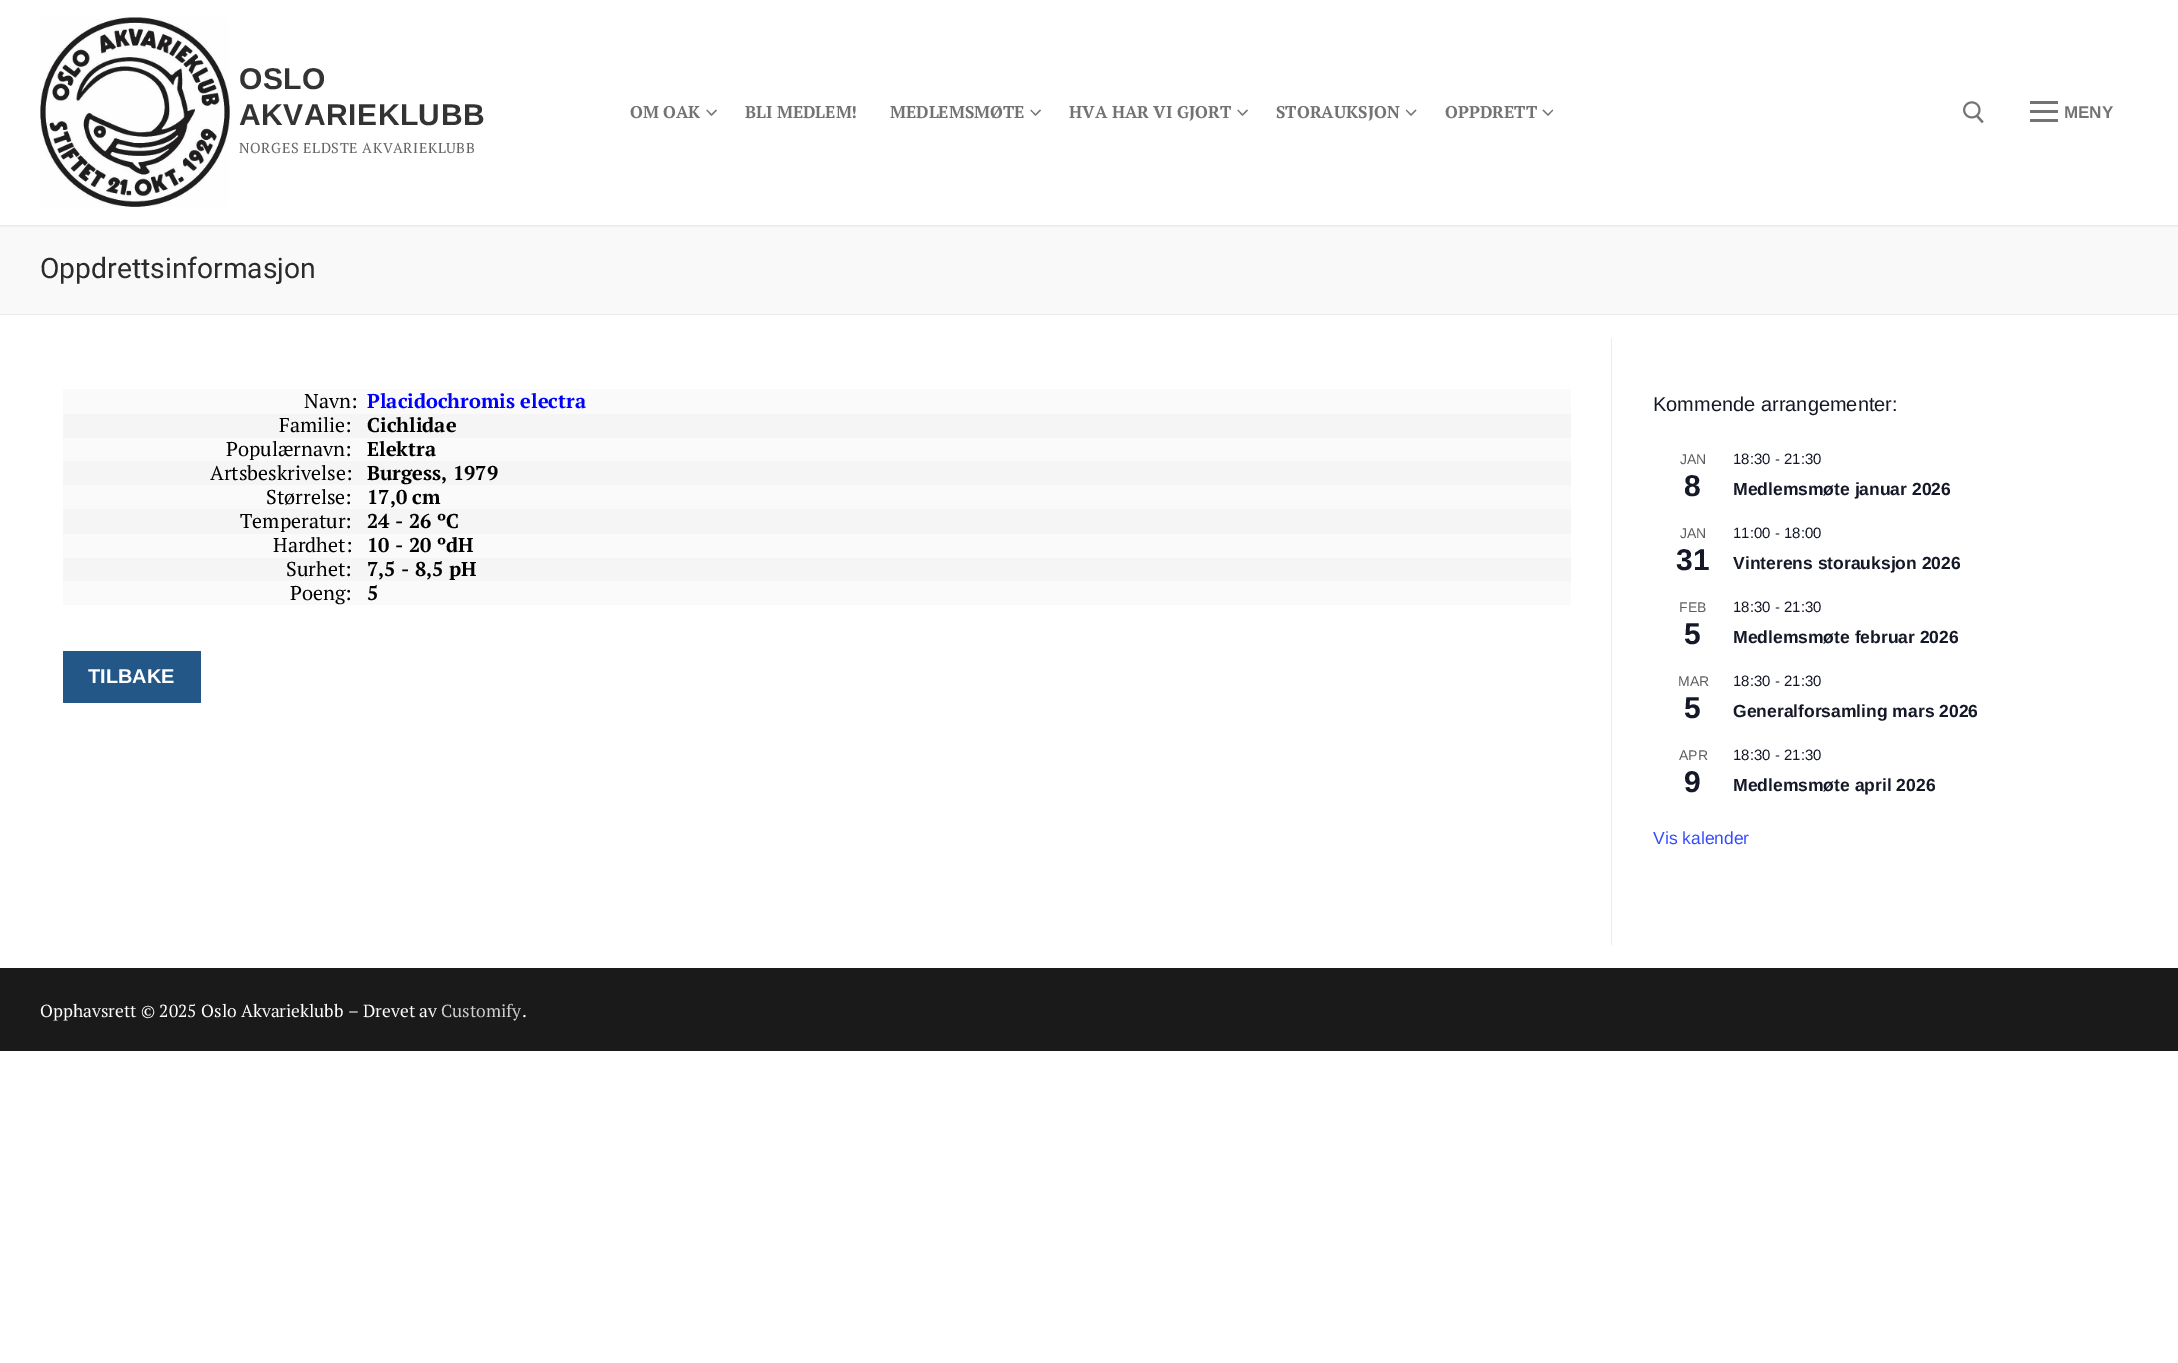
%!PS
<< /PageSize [2178 1363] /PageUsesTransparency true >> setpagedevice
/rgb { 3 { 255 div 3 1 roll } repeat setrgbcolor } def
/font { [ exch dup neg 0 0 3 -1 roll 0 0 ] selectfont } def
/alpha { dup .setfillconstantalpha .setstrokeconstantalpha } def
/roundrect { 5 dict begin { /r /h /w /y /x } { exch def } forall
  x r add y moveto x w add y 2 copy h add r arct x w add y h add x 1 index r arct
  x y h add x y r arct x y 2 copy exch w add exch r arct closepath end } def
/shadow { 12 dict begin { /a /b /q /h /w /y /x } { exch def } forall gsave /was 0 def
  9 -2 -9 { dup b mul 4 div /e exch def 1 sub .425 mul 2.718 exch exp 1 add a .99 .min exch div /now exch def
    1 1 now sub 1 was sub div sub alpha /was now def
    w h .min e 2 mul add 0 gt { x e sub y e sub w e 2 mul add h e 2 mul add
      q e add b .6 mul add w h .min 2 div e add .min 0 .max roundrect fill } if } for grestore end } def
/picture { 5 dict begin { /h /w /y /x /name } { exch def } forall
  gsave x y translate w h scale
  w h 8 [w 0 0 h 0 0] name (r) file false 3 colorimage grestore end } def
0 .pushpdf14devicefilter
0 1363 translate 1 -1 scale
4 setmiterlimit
255 255 255 rgb
0 0 2178 1363 rectfill
249 249 249 rgb
0 225 2178 89 rectfill
gsave
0 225 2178 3 rectclip
225 229 234 rgb
0 1 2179 225 0 1 1 shadow
grestore
(img/1.rgb) 40 17 190 190 picture
115 115 115 rgb
711.5 116 moveto 706.5 110.5 lineto 707 109.5 lineto 711.5 114 lineto closepath fill
0.55 alpha
0 0 0 rgb
717 110.5 moveto 711.5 116 lineto 711.5 114 lineto 716 109.5 lineto closepath fill
1 alpha
115 115 115 rgb
1035.5 116 moveto 1030.5 110.5 lineto 1031 109.5 lineto 1035.5 114 lineto closepath fill
0.55 alpha
0 0 0 rgb
1041 110.5 moveto 1035.5 116 lineto 1035.5 114 lineto 1040 109.5 lineto closepath fill
1 alpha
115 115 115 rgb
1242.5 116 moveto 1237.5 110.5 lineto 1238 109.5 lineto 1242.5 114 lineto closepath fill
0.55 alpha
0 0 0 rgb
1248 110.5 moveto 1242.5 116 lineto 1242.5 114 lineto 1247 109.5 lineto closepath fill
1 alpha
115 115 115 rgb
1411 116 moveto 1406 110.5 lineto 1406.5 109.5 lineto 1411 114 lineto closepath 1416.5 110.5 moveto 1411 116 lineto 1411 114 lineto 1415.5 109.5 lineto closepath fill
1548 116 moveto 1542.5 110.5 lineto 1543.5 109.5 lineto 1548 114 lineto closepath 1553 110.5 moveto 1548 116 lineto 1548 114 lineto 1552.5 109.5 lineto closepath fill
(img/2.rgb) 1963 101 21 23 picture
[
  [2030 110 28 3 115 115 115]
  [2030 101 28 3 115 115 115]
  [2030 119 28 3 115 115 115]
  [0 314 2178 1 234 236 238]
  [1611 338 1 607 234 236 238]
  [63 389 1508 25 250 250 250]
  [63 414 1508 24 245 245 245]
  [63 438 1508 23 250 250 250]
  [63 461 1508 24 245 245 245]
  [63 485 1508 24 250 250 250]
  [63 509 1508 25 245 245 245]
  [63 534 1508 24 250 250 250]
  [63 558 1508 23 245 245 245]
  [63 581 1508 24 250 250 250]
] { aload pop rgb rectfill } forall
35 87 135 rgb
63 651 138 52 1 roundrect fill
26 26 26 rgb
0 968 2178 83 rectfill
/LiberationSans-Bold 30 font
51 51 51 rgb
239 89 moveto 0.5 0 (OSLO) ashow
239 125 moveto 0.5 0 (AKVARIEKLUBB) ashow
/PTSerif-Regular 14.4 font
102 102 102 rgb
239 153 moveto 0.6 0 (NORGES ELDSTE AKVARIEKLUBB) ashow
/PTSerif-Bold 17 font
115 115 115 rgb
[
  [(OM OAK) 630 118]
  [(BLI MEDLEM!) 745 118]
  [(MEDLEMSMØTE) 890 118]
  [(HVA HAR VI GJORT) 1069 118]
  [(STORAUKSJON) 1276 118]
  [(OPPDRETT) 1445 118]
] { aload pop moveto show } forall
/LiberationSans-Bold 17 font
2064 118 moveto (MENY) show
/Roboto-Regular 28.25 font
43 43 43 rgb
40 278 moveto (Oppdrettsinformasjon) show
/PTSerif-Regular 20 font
0 0 0 rgb
304 408 moveto (Navn:) show
/PTSerif-Bold 20 font
0 0 255 rgb
367 408 moveto (Placidochromis electra) show
/PTSerif-Regular 20 font
0 0 0 rgb
279 432 moveto (Familie:) show
/PTSerif-Bold 20 font
367 432 moveto (Cichlidae) show
/PTSerif-Regular 20 font
226 456 moveto (Populærnavn:) show
/PTSerif-Bold 20 font
367 456 moveto (Elektra) show
/PTSerif-Regular 20 font
210 480 moveto (Artsbeskrivelse:) show
/PTSerif-Bold 20 font
367 480 moveto (Burgess, 1979) show
/PTSerif-Regular 20 font
266 504 moveto (Størrelse:) show
/PTSerif-Bold 20 font
367 504 moveto (17,0 cm) show
/PTSerif-Regular 20 font
240 528 moveto (Temperatur:) show
/PTSerif-Bold 20 font
367 528 moveto (24 - 26 ºC) show
/PTSerif-Regular 20 font
273 552 moveto (Hardhet:) show
/PTSerif-Bold 20 font
367 552 moveto (10 - 20 ºdH) show
/PTSerif-Regular 20 font
286 576 moveto (Surhet:) show
/PTSerif-Bold 20 font
367 576 moveto (7,5 - 8,5 pH) show
/PTSerif-Regular 20 font
290 600 moveto (Poeng:) show
/PTSerif-Bold 20 font
367 600 moveto (5) show
/LiberationSans-Bold 20 font
255 255 255 rgb
88 683 moveto (TILBAKE) show
/LiberationSans-Regular 20 font
20 24 39 rgb
1653 411 moveto (Kommende arrangementer:) show
/LiberationSans-Regular 14 font
93 93 93 rgb
1680 464 moveto (JAN) show
/LiberationSans-Bold 30 font
20 24 39 rgb
1684 496 moveto (8) show
/LiberationSans-Regular 15 font
1733 464 moveto (18:30 - 21:30) show
/LiberationSans-Bold 17.5 font
1733 495 moveto (Medlemsmøte januar 2026) show
/LiberationSans-Regular 14 font
93 93 93 rgb
1680 538 moveto (JAN) show
/LiberationSans-Bold 30 font
20 24 39 rgb
1676 570 moveto (31) show
/LiberationSans-Regular 15 font
1733 538 moveto (11:00 - 18:00) show
/LiberationSans-Bold 17.5 font
1733 569 moveto (Vinterens storauksjon 2026) show
/LiberationSans-Regular 14 font
93 93 93 rgb
1679 612 moveto (FEB) show
/LiberationSans-Bold 30 font
20 24 39 rgb
1684 644 moveto (5) show
/LiberationSans-Regular 15 font
1733 612 moveto (18:30 - 21:30) show
/LiberationSans-Bold 17.5 font
1733 643 moveto (Medlemsmøte februar 2026) show
/LiberationSans-Regular 14 font
93 93 93 rgb
1678 686 moveto (MAR) show
/LiberationSans-Bold 30 font
20 24 39 rgb
1684 718 moveto (5) show
/LiberationSans-Regular 15 font
1733 686 moveto (18:30 - 21:30) show
/LiberationSans-Bold 17.5 font
1733 717 moveto (Generalforsamling mars 2026) show
/LiberationSans-Regular 14 font
93 93 93 rgb
1679 760 moveto (APR) show
/LiberationSans-Bold 30 font
20 24 39 rgb
1684 792 moveto (9) show
/LiberationSans-Regular 15 font
1733 760 moveto (18:30 - 21:30) show
/LiberationSans-Bold 17.5 font
1733 791 moveto (Medlemsmøte april 2026) show
/LiberationSans-Regular 17.5 font
51 74 255 rgb
1653 844 moveto (Vis kalender) show
/PTSerif-Regular 17.5 font
255 255 255 rgb
40 1017 moveto (Opphavsrett © 2025 Oslo Akvarieklubb – Drevet av) show
207 207 207 rgb
441 1017 moveto (Customify) show
255 255 255 rgb
522 1017 moveto (.) show
.poppdf14devicefilter showpage
